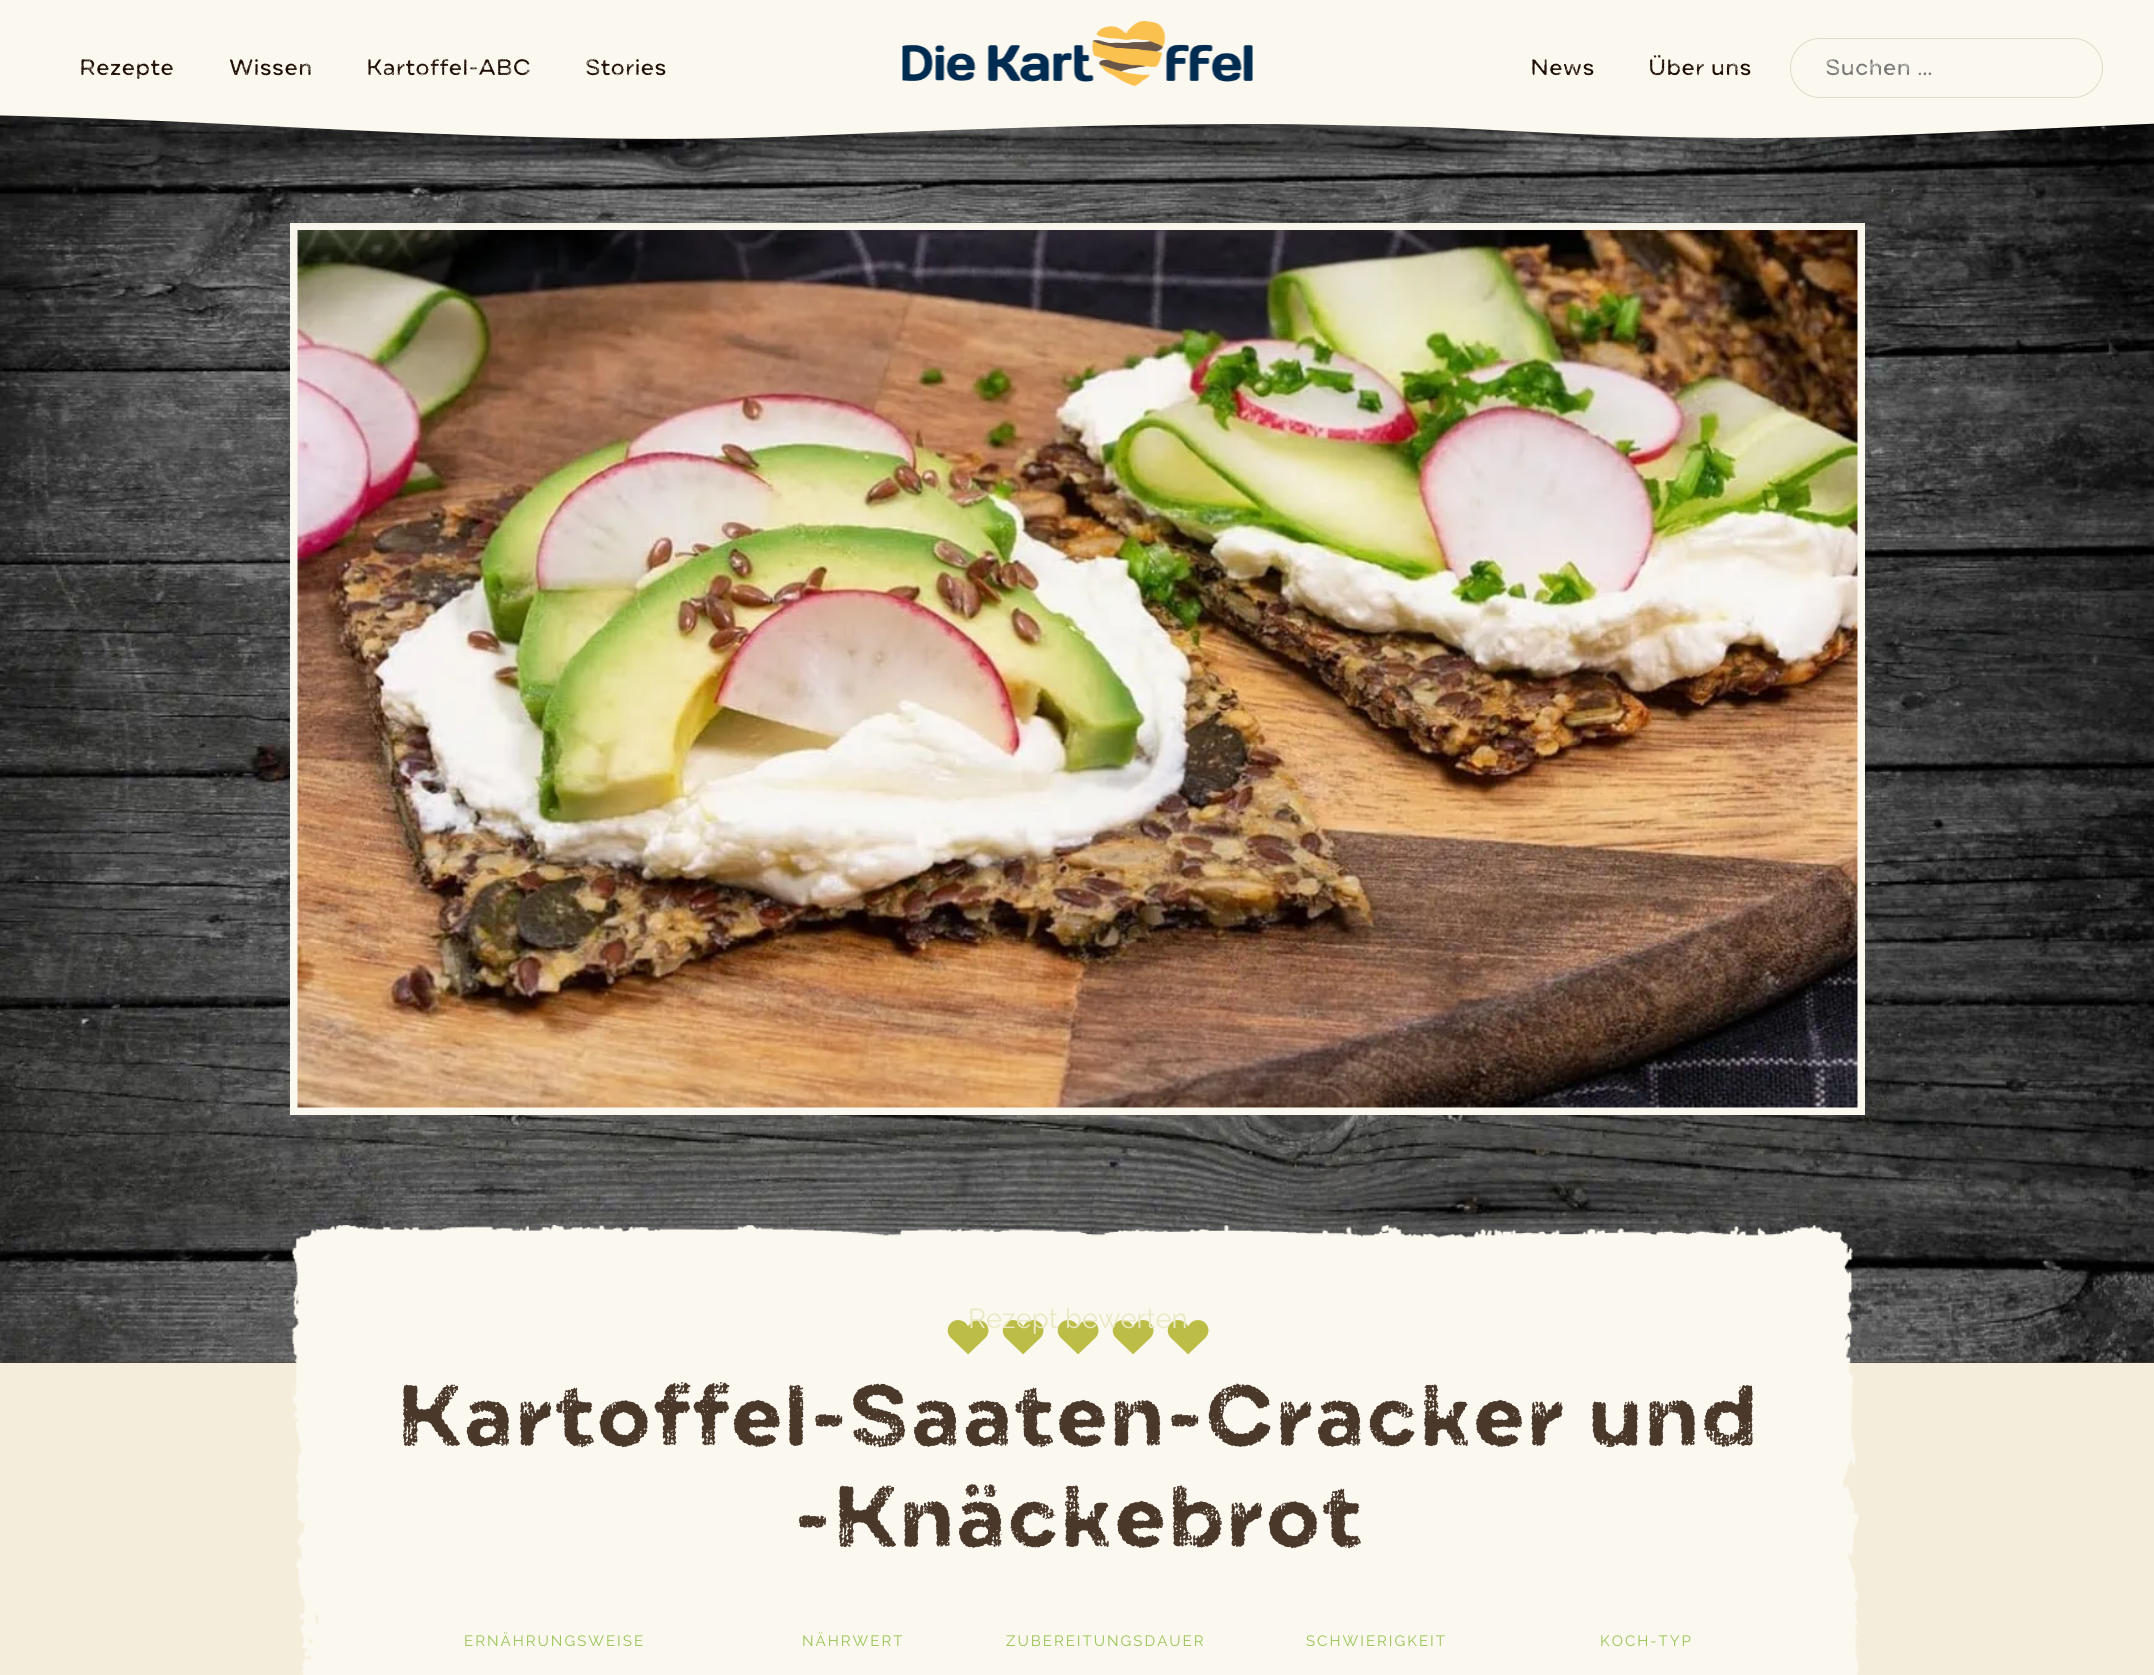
import math
import cairo

surface = cairo.ImageSurface(cairo.FORMAT_RGB24, 2154, 1675)
ctx = cairo.Context(surface)
options = cairo.FontOptions()
options.set_hint_metrics(cairo.HINT_METRICS_OFF)
options.set_hint_style(cairo.HINT_STYLE_NONE)
ctx.set_font_options(options)
ctx.set_miter_limit(4)


def set_color(code):
    ctx.set_source_rgb(*(v / 255 for v in bytes.fromhex(code[-6:])))


def draw_text(x, y, s, family, size, color, bold=False, italic=False):
    ctx.select_font_face(family, cairo.FONT_SLANT_ITALIC if italic else cairo.FONT_SLANT_NORMAL, cairo.FONT_WEIGHT_BOLD if bold else cairo.FONT_WEIGHT_NORMAL)
    ctx.set_font_size(size)
    set_color(color)
    ctx.move_to(x, y)
    ctx.show_text(s)


def draw_spaced(x, y, s, letter, word):
    ctx.move_to(x, y)
    for ch in s:
        ctx.show_text(ch)
        ctx.rel_move_to(letter + word * (ch == ' '), 0)


def fill_rect(x, y, w, h, color):
    set_color(color)
    ctx.rectangle(x, y, w, h)
    ctx.fill()


def rounded_rect(x, y, w, h, r):
    ctx.new_sub_path()
    for i, (u, v) in enumerate([(x + w - r, y + h - r), (x + r, y + h - r), (x + r, y + r), (x + w - r, y + r)]):
        ctx.arc(u, v, r, i * math.pi / 2, (i + 1) * math.pi / 2)
    ctx.close_path()


def draw_shadow(x, y, w, h, r, blur, alpha):
    ctx.push_group_with_content(cairo.CONTENT_ALPHA)
    ctx.set_operator(cairo.OPERATOR_SOURCE)
    for i in range(15, -16, -2):
        e = blur * i / 6
        if min(w, h) + 2 * e > 0:
            ctx.set_source_rgba(0, 0, 0, alpha * math.erfc((i - 1) / 8.5) / 2)
            rounded_rect(x - e, y - e, w + 2 * e, h + 2 * e, max(0, min(r + e + blur * .6, min(w, h) / 2 + e)))
            ctx.fill()
    ctx.mask(ctx.pop_group())


def draw_image(path, x, y, w, h):
    ctx.save()
    ctx.set_source_surface(cairo.ImageSurface.create_from_png(path), x, y)
    ctx.rectangle(x, y, w, h)
    ctx.fill()
    ctx.restore()


set_color("#f4eddb")
ctx.paint()
fill_rect(0, 1362, 2154, 1, "#4a382b")
draw_image("assets/img2.png", 0, 115, 2154, 1248)
set_color("#1d0d03")
draw_shadow(290, 288, 1575, 892, 0, 27.5, 0.05)
ctx.rectangle(294, 227, 1567, 884)
set_color("#fbf8f0")
ctx.set_line_width(8)
ctx.stroke()
draw_image("assets/img3.png", 297, 230, 1561, 878)
set_color("#000000")
draw_shadow(0, 0, 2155, 113, 0, 75, 0.2)
fill_rect(0, 0, 2154, 111, "#fbf8f0")
draw_image("assets/img1.png", 902, 21, 351, 65)
draw_text(79, 75, "Rezepte", "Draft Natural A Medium", 22.5, "#1d0d03")
draw_text(229, 75, "Wissen", "Draft Natural A Medium", 22.5, "#1d0d03")
draw_text(366, 75, "Kartoffel-ABC", "Draft Natural A Medium", 22.5, "#1d0d03")
draw_text(585, 75, "Stories", "Draft Natural A Medium", 22.5, "#1d0d03")
draw_text(1530, 75, "News", "Draft Natural A Medium", 22.5, "#1d0d03")
draw_text(1648, 75, "Über uns", "Draft Natural A Medium", 22.5, "#1d0d03")
rounded_rect(1790.5, 38.5, 312, 59, 29.5)
set_color("#e0dac8")
ctx.set_line_width(1)
ctx.stroke()
draw_text(1825, 75, "Suchen …", "Draft Natural A Medium", 22.5, "#757575")
ctx.save()
ctx.rectangle(0, 111, 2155, 28)
ctx.clip()
set_color("#fbf8f0")
ctx.set_fill_rule(cairo.FILL_RULE_EVEN_ODD)
ctx.new_path()
ctx.move_to(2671, 124)
ctx.curve_to(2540, 127, 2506, 119, 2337, 119)
ctx.curve_to(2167, 119, 1922, 138, 1761, 138)
ctx.curve_to(1601, 138, 1495, 129, 1426, 127)
ctx.curve_to(1370, 126, 1312, 124, 1256, 124)
ctx.curve_to(1026, 124, 832, 136, 742, 138)
ctx.curve_to(615, 141, 465, 136, 286, 127)
ctx.curve_to(114, 118, 9, 115, -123, 113)
ctx.curve_to(-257, 111, -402, 119, -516, 124)
ctx.line_to(-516, 1)
ctx.line_to(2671, 1)
ctx.close_path()
ctx.fill()
ctx.restore()
draw_image("assets/img4.png", 290, 1225, 1570, 450)
draw_image("assets/img5.png", 947, 1320, 42, 35)
draw_image("assets/img5.png", 1002, 1320, 42, 35)
draw_image("assets/img5.png", 1057, 1320, 42, 35)
draw_image("assets/img5.png", 1112, 1320, 42, 35)
draw_image("assets/img5.png", 1167, 1320, 42, 35)
draw_text(968, 1328, "Rezept bewerten", "Raleway Thin", 27.5, "#eae8c2")
draw_text(396, 1446, "Kartoffel-Saaten-Cracker und", "Draft Natural A", 87.5, "#4a382b", bold=True)
draw_text(793, 1547, "-Knäckebrot", "Draft Natural A", 87.5, "#4a382b", bold=True)
ctx.select_font_face("Raleway Thin")
ctx.set_font_size(15)
set_color("#99c455")
draw_spaced(464, 1646, "ERNÄHRUNGSWEISE", 2, 0)
draw_spaced(802, 1646, "NÄHRWERT", 2, 0)
draw_spaced(1006, 1646, "ZUBEREITUNGSDAUER", 2, 0)
draw_spaced(1306, 1646, "SCHWIERIGKEIT", 2, 0)
draw_spaced(1600, 1646, "KOCH-TYP", 2, 0)
surface.write_to_png("output.png")
